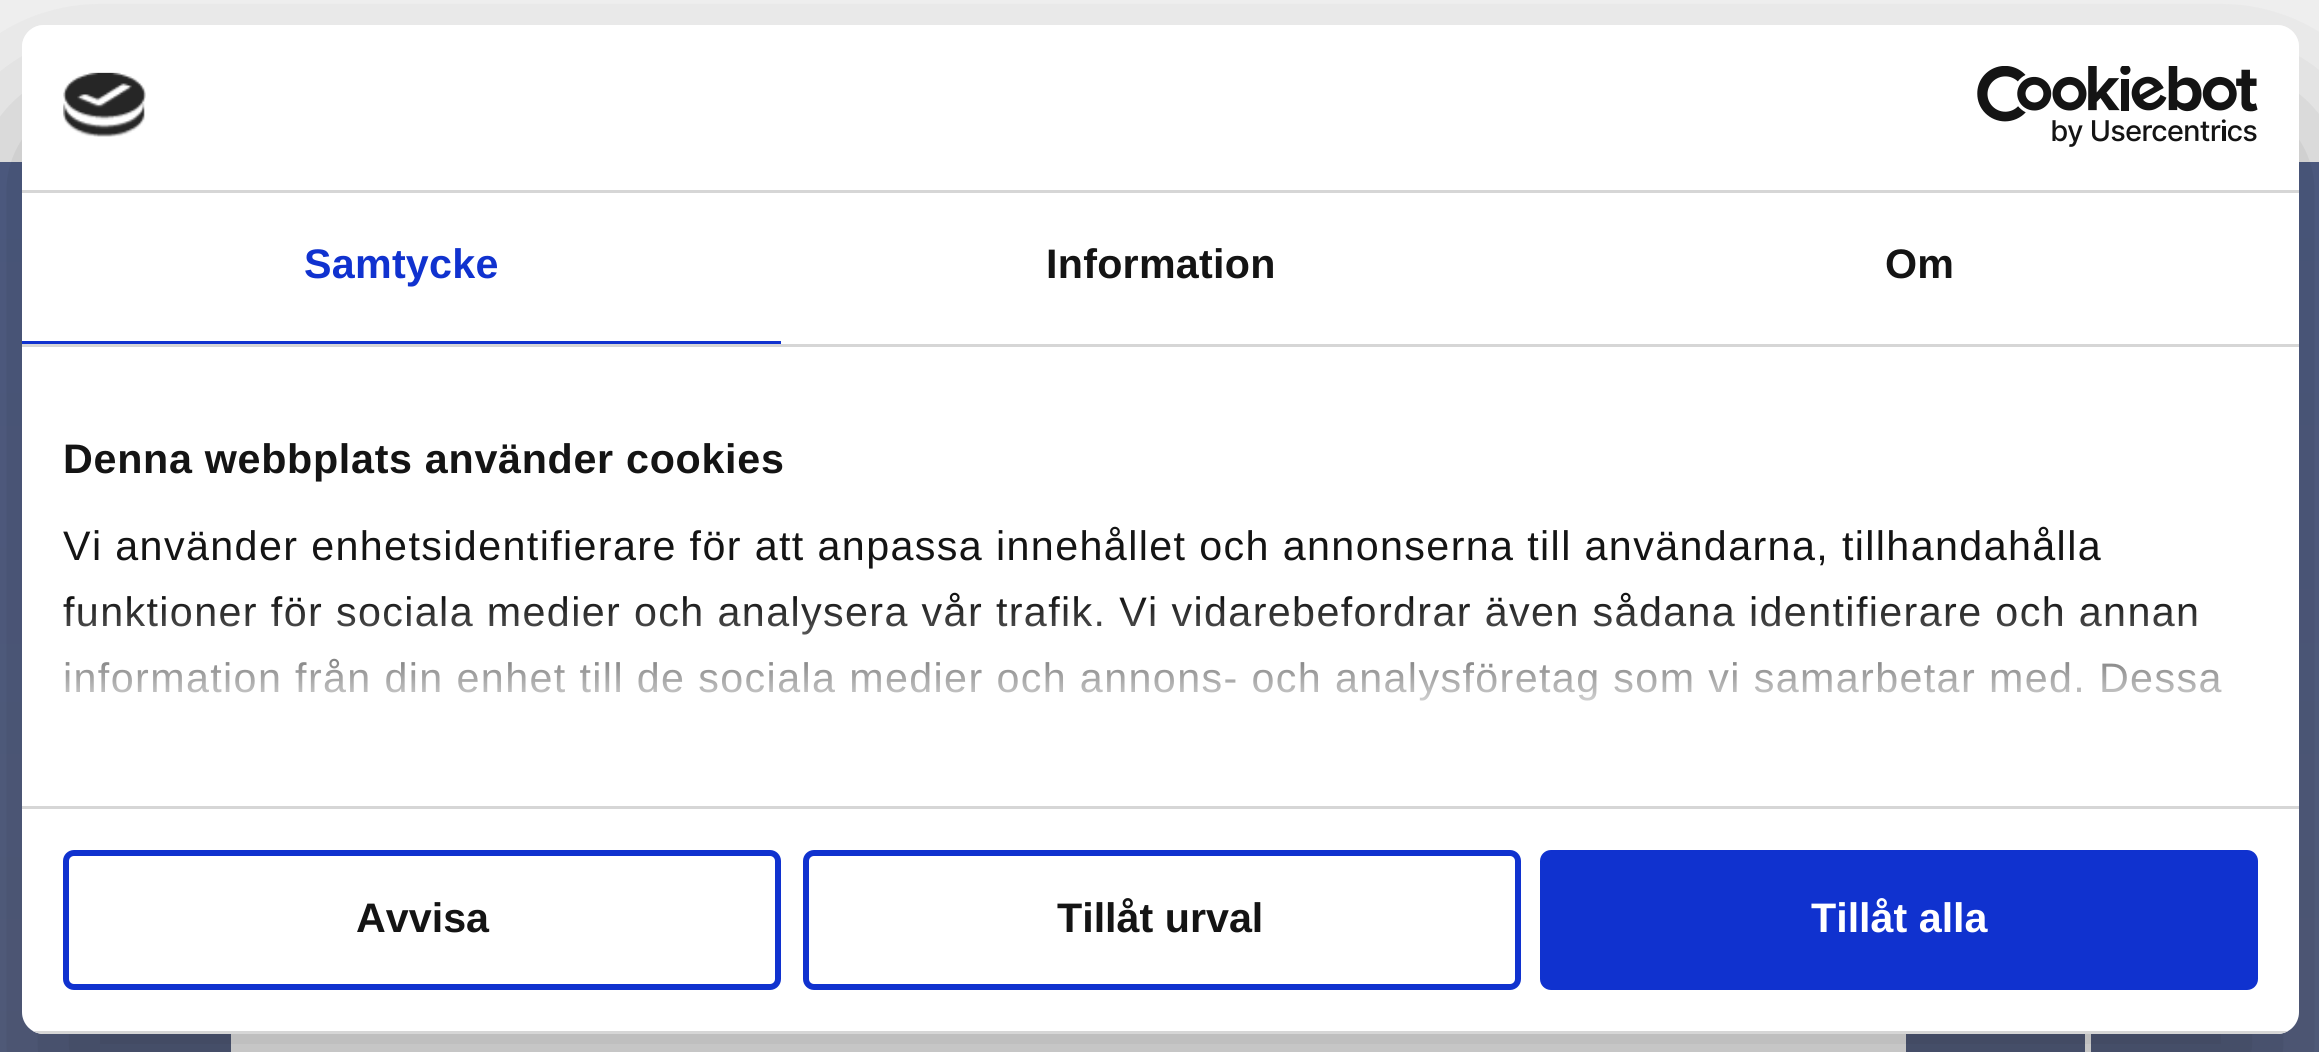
import math
import cairo

surface = cairo.ImageSurface(cairo.FORMAT_RGB24, 2319, 1052)
ctx = cairo.Context(surface)
options = cairo.FontOptions()
options.set_hint_metrics(cairo.HINT_METRICS_OFF)
options.set_hint_style(cairo.HINT_STYLE_NONE)
ctx.set_font_options(options)
ctx.set_miter_limit(4)


def set_color(code):
    ctx.set_source_rgb(*(v / 255 for v in bytes.fromhex(code[-6:])))


def draw_text(x, y, s, family, size, color, bold=False, italic=False):
    ctx.select_font_face(family, cairo.FONT_SLANT_ITALIC if italic else cairo.FONT_SLANT_NORMAL, cairo.FONT_WEIGHT_BOLD if bold else cairo.FONT_WEIGHT_NORMAL)
    ctx.set_font_size(size)
    set_color(color)
    ctx.move_to(x, y)
    ctx.show_text(s)


def draw_spaced(x, y, s, letter, word):
    ctx.move_to(x, y)
    for ch in s:
        ctx.show_text(ch)
        ctx.rel_move_to(letter + word * (ch == ' '), 0)


def fill_rect(x, y, w, h, color):
    set_color(color)
    ctx.rectangle(x, y, w, h)
    ctx.fill()


def rounded_rect(x, y, w, h, r):
    ctx.new_sub_path()
    for i, (u, v) in enumerate([(x + w - r, y + h - r), (x + r, y + h - r), (x + r, y + r), (x + w - r, y + r)]):
        ctx.arc(u, v, r, i * math.pi / 2, (i + 1) * math.pi / 2)
    ctx.close_path()


def draw_shadow(x, y, w, h, r, blur, alpha):
    ctx.push_group_with_content(cairo.CONTENT_ALPHA)
    ctx.set_operator(cairo.OPERATOR_SOURCE)
    for i in range(15, -16, -2):
        e = blur * i / 6
        if min(w, h) + 2 * e > 0:
            ctx.set_source_rgba(0, 0, 0, alpha * math.erfc((i - 1) / 8.5) / 2)
            rounded_rect(x - e, y - e, w + 2 * e, h + 2 * e, max(0, min(r + e + blur * .6, min(w, h) / 2 + e)))
            ctx.fill()
    ctx.mask(ctx.pop_group())


def draw_image(path, x, y, w, h):
    ctx.save()
    ctx.set_source_surface(cairo.ImageSurface.create_from_png(path), x, y)
    ctx.rectangle(x, y, w, h)
    ctx.fill()
    ctx.restore()


set_color("#f5f5f5")
ctx.paint()
gradient = cairo.LinearGradient(1160, 162, 1161, 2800)
gradient.add_color_stop_rgba(0, 0.329, 0.388, 0.549, 1)
gradient.add_color_stop_rgba(1, 0.392, 0.4, 0.482, 1)
ctx.set_source(gradient)
ctx.rectangle(0, 162, 2319, 890)
ctx.fill()
fill_rect(2085, 1034, 6, 18, "#ffffff")
fill_rect(231, 1034, 1675, 18, "#ffffff")
ctx.save()
ctx.set_fill_rule(cairo.FILL_RULE_EVEN_ODD)
ctx.new_path()
ctx.move_to(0, 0)
ctx.line_to(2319, 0)
ctx.line_to(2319, 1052)
ctx.line_to(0, 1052)
ctx.close_path()
ctx.move_to(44, 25)
ctx.line_to(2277, 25)
ctx.curve_to(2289, 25, 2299, 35, 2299, 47)
ctx.line_to(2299, 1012)
ctx.curve_to(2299, 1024, 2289, 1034, 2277, 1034)
ctx.line_to(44, 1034)
ctx.curve_to(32, 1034, 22, 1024, 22, 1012)
ctx.line_to(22, 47)
ctx.curve_to(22, 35, 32, 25, 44, 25)
ctx.close_path()
ctx.clip()
set_color("#000000")
draw_shadow(22, 113, 2277, 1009, 22, 93.5, 0.3)
ctx.restore()
rounded_rect(22, 25, 2277, 1009, 22)
ctx.fill()
fill_rect(22, 190, 2277, 3, "#d6d6d6")
draw_image("assets/img1.png", 63, 72, 83, 65)
draw_image("assets/img2.png", 1977, 66, 281, 81)
fill_rect(22, 344, 2277, 3, "#d6d6d6")
fill_rect(22, 341, 759, 3, "#1032cf")
ctx.select_font_face("Liberation Sans", cairo.FONT_SLANT_NORMAL, cairo.FONT_WEIGHT_BOLD)
ctx.set_font_size(41.25)
draw_spaced(304, 278, "Samtycke", 0.25, 0)
set_color("#141414")
draw_spaced(1046, 278, "Information", 0.25, 0)
draw_spaced(1885, 278, "Om", 0.25, 0)
fill_rect(22, 806, 2277, 3, "#d6d6d6")
set_color("#141414")
draw_spaced(63, 473, "Denna webbplats använder cookies", 0.7, 0)
ctx.select_font_face("Liberation Sans")
draw_spaced(63, 560, "Vi använder enhetsidentifierare för att anpassa innehållet och annonserna till användarna, tillhandahålla", 1.38, 0)
draw_spaced(63, 626, "funktioner för sociala medier och analysera vår trafik. Vi vidarebefordrar även sådana identifierare och annan", 1.38, 0)
draw_spaced(63, 692, "information från din enhet till de sociala medier och annons- och analysföretag som vi samarbetar med. Dessa", 1.38, 0)
gradient = cairo.LinearGradient(1143, 804, 1143, 598)
gradient.add_color_stop_rgba(0, 1, 1, 1, 1)
gradient.add_color_stop_rgba(0.5, 1, 1, 1, 0.8)
gradient.add_color_stop_rgba(1, 1, 1, 1, 0)
ctx.set_source(gradient)
ctx.rectangle(64, 601, 2158, 100)
ctx.fill()
ctx.save()
rounded_rect(22, 25, 2277, 1009, 22)
ctx.clip()
fill_rect(33, 1031, 2255, 3, "#d6d6d6")
ctx.restore()
rounded_rect(66, 853, 712, 134, 8)
set_color("#1032cf")
ctx.set_line_width(6)
ctx.stroke()
draw_text(356, 932, "Avvisa", "Liberation Sans", 41.25, "#141414", bold=True)
rounded_rect(806, 853, 712, 134, 8)
set_color("#1032cf")
ctx.stroke()
draw_text(1057, 932, "Tillåt urval", "Liberation Sans", 41.25, "#141414", bold=True)
set_color("#1032cf")
rounded_rect(1543, 853, 712, 134, 8)
ctx.fill_preserve()
ctx.stroke()
draw_text(1811, 932, "Tillåt alla", "Liberation Sans", 41.25, "#ffffff", bold=True)
surface.write_to_png("output.png")
